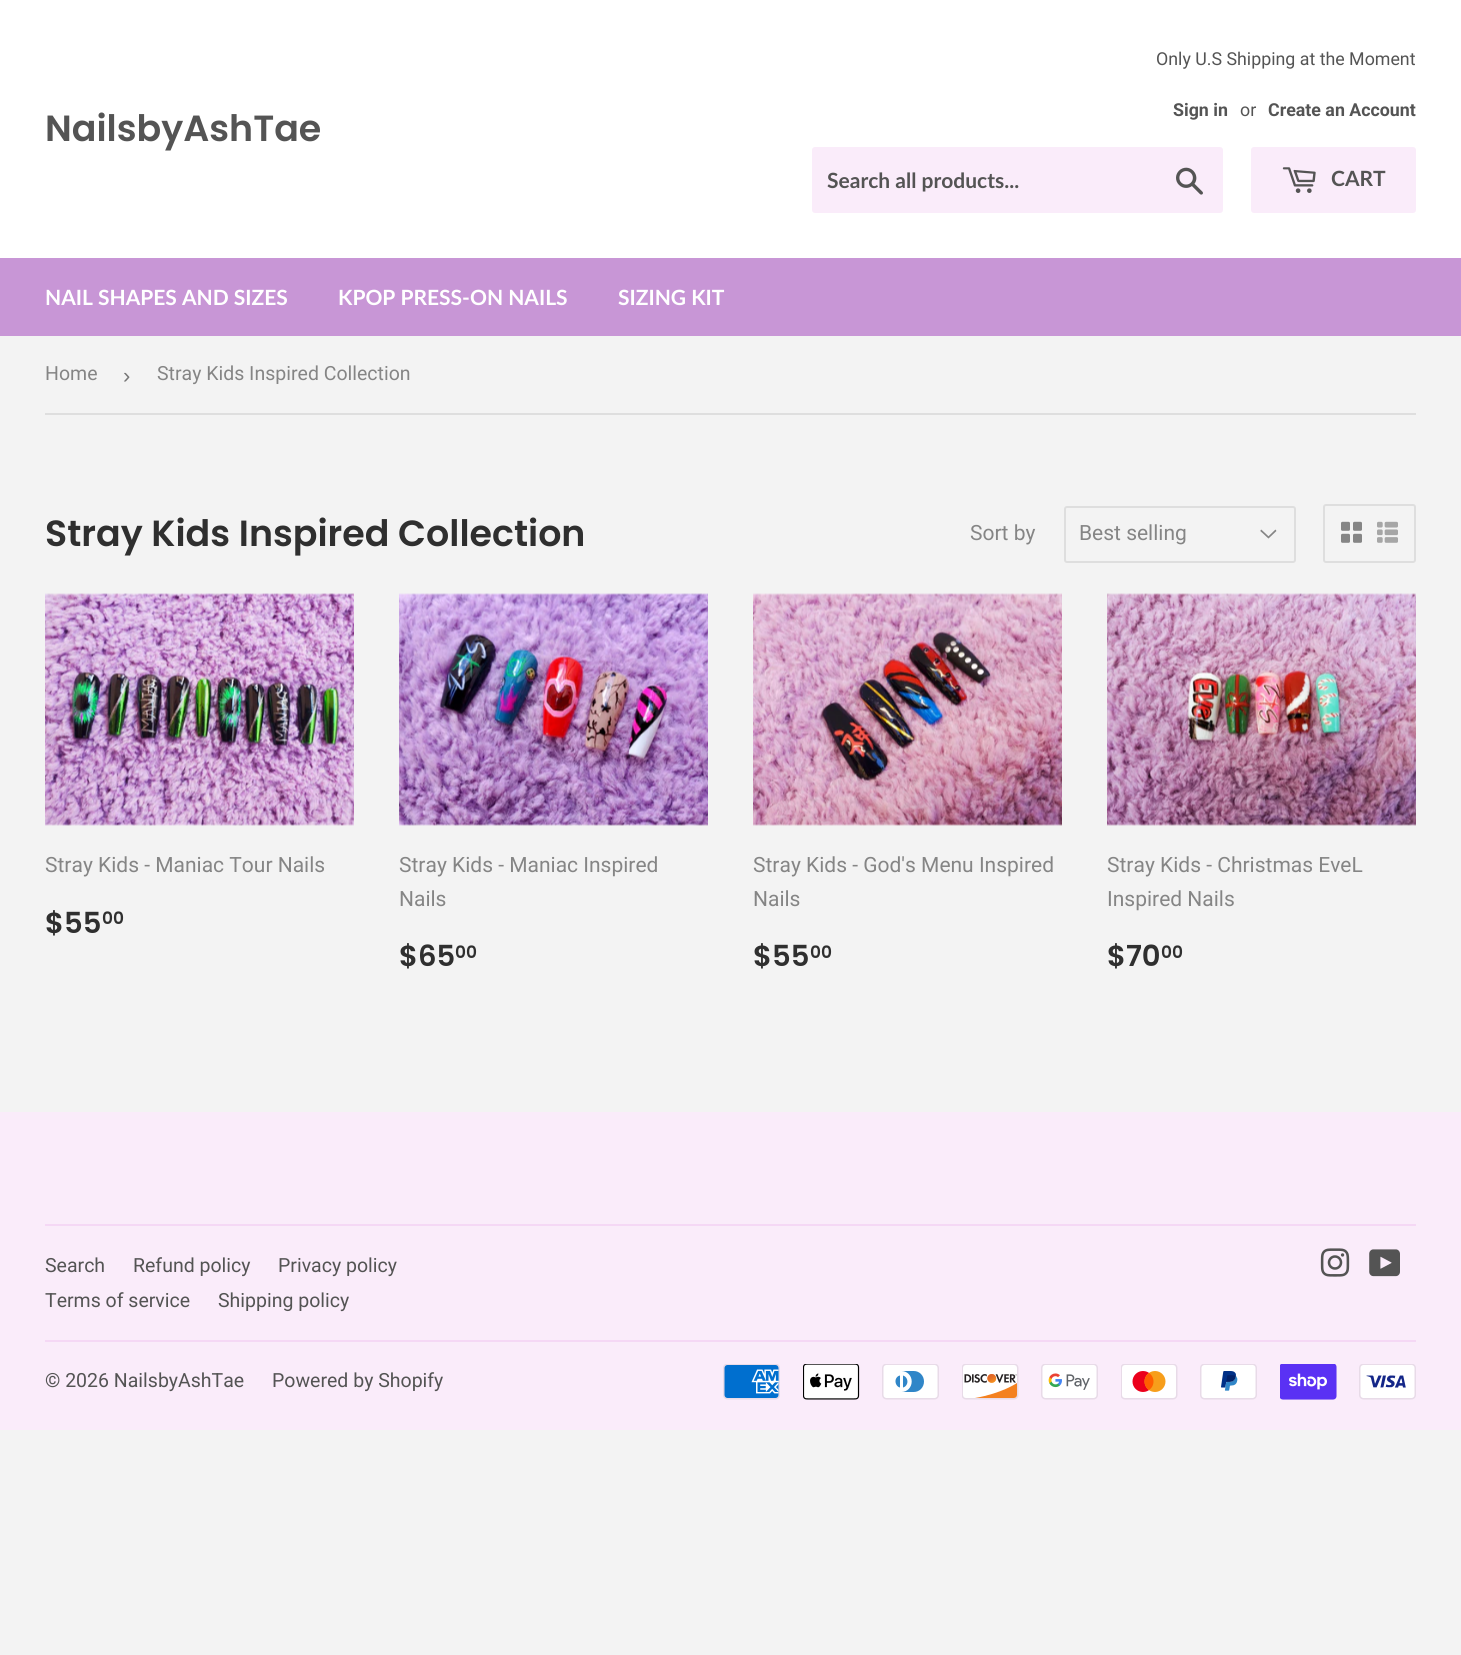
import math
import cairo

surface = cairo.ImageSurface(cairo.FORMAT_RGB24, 1461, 1655)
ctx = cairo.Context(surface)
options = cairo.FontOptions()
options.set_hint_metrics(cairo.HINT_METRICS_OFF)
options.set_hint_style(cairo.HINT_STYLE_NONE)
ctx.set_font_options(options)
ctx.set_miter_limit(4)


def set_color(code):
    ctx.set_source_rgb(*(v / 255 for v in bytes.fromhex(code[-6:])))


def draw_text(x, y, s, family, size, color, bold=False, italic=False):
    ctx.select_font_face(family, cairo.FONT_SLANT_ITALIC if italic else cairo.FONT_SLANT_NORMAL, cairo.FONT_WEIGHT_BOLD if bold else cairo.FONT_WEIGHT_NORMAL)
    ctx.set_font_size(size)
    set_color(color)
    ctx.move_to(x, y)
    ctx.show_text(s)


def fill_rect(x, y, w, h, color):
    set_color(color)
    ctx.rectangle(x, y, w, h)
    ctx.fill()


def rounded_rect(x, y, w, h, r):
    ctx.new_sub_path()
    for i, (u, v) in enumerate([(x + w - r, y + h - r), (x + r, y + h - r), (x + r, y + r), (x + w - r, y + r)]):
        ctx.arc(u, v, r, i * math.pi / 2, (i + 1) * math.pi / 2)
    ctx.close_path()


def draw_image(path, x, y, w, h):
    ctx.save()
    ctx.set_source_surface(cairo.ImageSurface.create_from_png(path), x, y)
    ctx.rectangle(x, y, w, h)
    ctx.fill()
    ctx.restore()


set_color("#f3f3f3")
ctx.paint()
fill_rect(0, 0, 1461, 258, "#ffffff")
draw_text(45, 141, "NailsbyAshTae", "Poppins SemiBold", 36.4, "#545454")
draw_text(1156, 65, "Only U.S Shipping at the Moment", "Roboto", 17.8, "#545454")
draw_text(1173, 116, "Sign in", "Roboto", 17.8, "#545454", bold=True)
draw_text(1240, 116, "or", "Roboto", 17.8, "#545454")
draw_text(1268, 116, "Create an Account", "Roboto", 17.8, "#545454", bold=True)
set_color("#faecfa")
rounded_rect(812, 147, 411, 66, 3)
ctx.fill()
draw_text(827, 188, "Search all products...", "Lato", 21, "#545454", bold=True)
draw_image("assets/img1.png", 1176, 167, 27, 28)
set_color("#faecfa")
rounded_rect(1251, 147, 165, 66, 3)
ctx.fill()
draw_image("assets/img2.png", 1282, 167, 34, 26)
draw_text(1331, 186, "CART", "Lato", 21, "#545454", bold=True)
fill_rect(0, 258, 1461, 78, "#c896d6")
draw_text(45, 305, "NAIL SHAPES AND SIZES", "Lato", 21, "#ffffff", bold=True)
draw_text(338, 305, "KPOP PRESS-ON NAILS", "Lato", 21, "#ffffff", bold=True)
draw_text(618, 305, "SIZING KIT", "Lato", 21, "#ffffff", bold=True)
fill_rect(45, 413, 1371, 2, "#dedede")
draw_text(45, 380, "Home", "Roboto", 19.5, "#858585")
draw_text(123, 383, "›", "Liberation Sans", 22, "#767676")
draw_text(157, 380, "Stray Kids Inspired Collection", "Roboto", 19.5, "#858585")
draw_text(45, 546, "Stray Kids Inspired Collection", "Poppins SemiBold", 36.4, "#2f2f2f")
draw_text(970, 540, "Sort by", "Roboto", 21, "#858585")
draw_image("assets/img3.png", 1260, 529, 17, 10)
rounded_rect(1065, 507, 230, 55, 2)
set_color("#dedede")
ctx.stroke()
draw_text(1079, 540, "Best selling", "Roboto", 21, "#858585")
rounded_rect(1324, 505, 91, 57, 2)
set_color("#dedede")
ctx.stroke()
draw_image("assets/img4.png", 1341, 521, 21, 22)
draw_image("assets/img5.png", 1377, 521, 21, 22)
draw_image("assets/img6.png", 45, 593, 309, 233)
draw_text(45, 872, "Stray Kids - Maniac Tour Nails", "Roboto", 21, "#858585")
draw_text(45, 933, "$55", "Poppins SemiBold", 29, "#2f2f2f")
draw_text(102, 924, "00", "Poppins SemiBold", 17, "#2f2f2f")
draw_image("assets/img7.png", 399, 593, 309, 233)
draw_text(399, 872, "Stray Kids - Maniac Inspired", "Roboto", 21, "#858585")
draw_text(399, 906, "Nails", "Roboto", 21, "#858585")
draw_text(399, 966, "$65", "Poppins SemiBold", 29, "#2f2f2f")
draw_text(455, 958, "00", "Poppins SemiBold", 17, "#2f2f2f")
draw_image("assets/img8.png", 753, 593, 309, 233)
draw_text(753, 872, "Stray Kids - God's Menu Inspired", "Roboto", 21, "#858585")
draw_text(753, 906, "Nails", "Roboto", 21, "#858585")
draw_text(753, 966, "$55", "Poppins SemiBold", 29, "#2f2f2f")
draw_text(810, 958, "00", "Poppins SemiBold", 17, "#2f2f2f")
draw_image("assets/img9.png", 1107, 593, 309, 233)
draw_text(1107, 872, "Stray Kids - Christmas EveL", "Roboto", 21, "#858585")
draw_text(1107, 906, "Inspired Nails", "Roboto", 21, "#858585")
draw_text(1107, 966, "$70", "Poppins SemiBold", 29, "#2f2f2f")
draw_text(1161, 958, "00", "Poppins SemiBold", 17, "#2f2f2f")
fill_rect(0, 1112, 1461, 318, "#faecfa")
fill_rect(45, 1224, 1371, 2, "#f5d8f5")
draw_text(45, 1272, "Search", "Roboto", 19.5, "#545454")
draw_text(133, 1272, "Refund policy", "Roboto", 19.5, "#545454")
draw_text(278, 1272, "Privacy policy", "Roboto", 19.5, "#545454")
draw_text(45, 1307, "Terms of service", "Roboto", 19.5, "#545454")
draw_text(218, 1307, "Shipping policy", "Roboto", 19.5, "#545454")
draw_image("assets/img10.png", 1320, 1248, 30, 29)
draw_image("assets/img11.png", 1369, 1249, 31, 28)
fill_rect(45, 1340, 1371, 2, "#f5d8f5")
draw_text(45, 1387, "© 2026 NailsbyAshTae", "Roboto", 19.5, "#545454")
draw_text(272, 1387, "Powered by Shopify", "Roboto", 19.5, "#545454")
draw_image("assets/img12.png", 723, 1364, 57, 36)
draw_image("assets/img13.png", 803, 1364, 57, 36)
draw_image("assets/img14.png", 882, 1364, 57, 36)
draw_image("assets/img15.png", 962, 1364, 57, 36)
draw_image("assets/img16.png", 1041, 1364, 57, 36)
draw_image("assets/img17.png", 1121, 1364, 57, 36)
draw_image("assets/img18.png", 1200, 1364, 57, 36)
draw_image("assets/img19.png", 1280, 1364, 57, 36)
draw_image("assets/img20.png", 1359, 1364, 57, 36)
surface.write_to_png("output.png")
